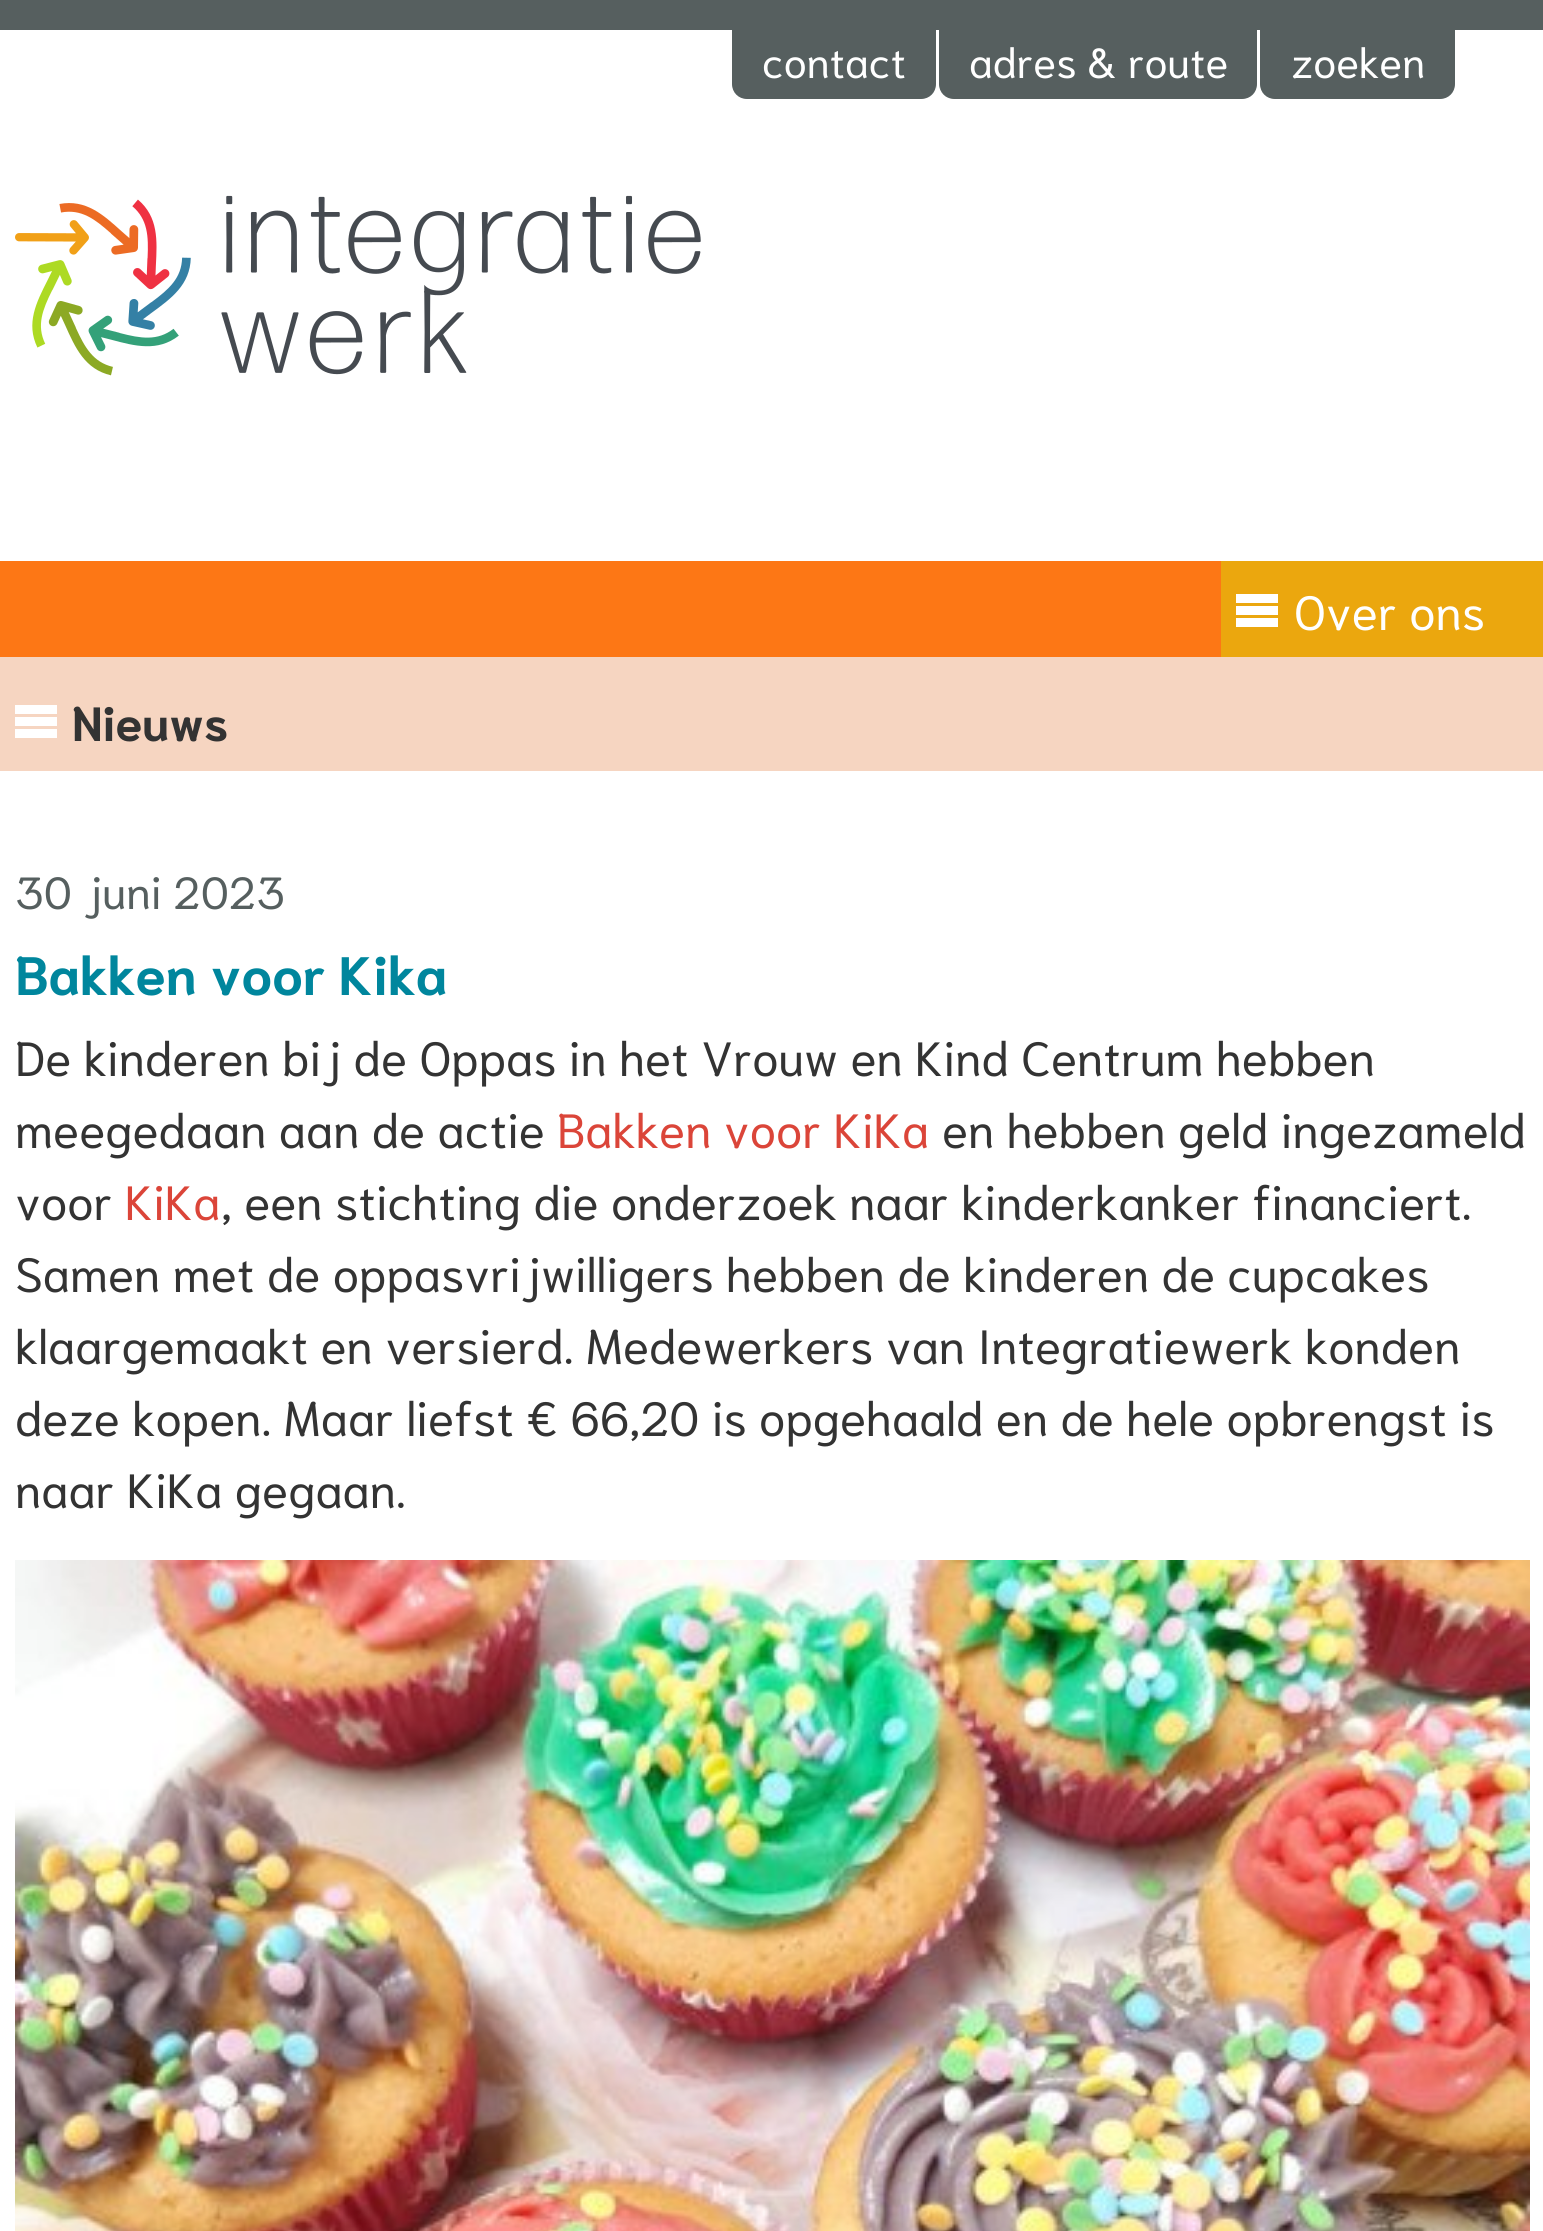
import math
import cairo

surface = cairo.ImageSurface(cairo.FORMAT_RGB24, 1543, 2231)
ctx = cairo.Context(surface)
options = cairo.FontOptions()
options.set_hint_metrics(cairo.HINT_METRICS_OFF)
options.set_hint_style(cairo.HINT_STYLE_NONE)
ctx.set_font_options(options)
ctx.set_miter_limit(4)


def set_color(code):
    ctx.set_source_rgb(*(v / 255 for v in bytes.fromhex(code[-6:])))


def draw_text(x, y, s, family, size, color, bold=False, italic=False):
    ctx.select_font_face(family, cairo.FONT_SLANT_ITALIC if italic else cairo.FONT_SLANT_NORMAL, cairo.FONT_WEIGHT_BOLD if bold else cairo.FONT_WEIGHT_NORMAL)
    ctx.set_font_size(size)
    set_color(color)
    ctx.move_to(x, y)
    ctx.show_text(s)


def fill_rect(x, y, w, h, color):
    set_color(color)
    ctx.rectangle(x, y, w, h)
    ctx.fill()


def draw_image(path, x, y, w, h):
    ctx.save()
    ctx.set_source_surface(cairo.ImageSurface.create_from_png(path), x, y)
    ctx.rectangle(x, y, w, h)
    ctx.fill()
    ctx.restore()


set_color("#ffffff")
ctx.paint()
fill_rect(0, 561, 1221, 96, "#fd7715")
fill_rect(0, 0, 1543, 30, "#565f5f")
ctx.new_path()
ctx.move_to(732, 30)
ctx.line_to(936, 30)
ctx.line_to(936, 84)
ctx.curve_to(936, 92.5, 929.5, 99, 921, 99)
ctx.line_to(747, 99)
ctx.curve_to(738.5, 99, 732, 92.5, 732, 84)
ctx.close_path()
ctx.fill()
draw_text(762, 78, "contact", "Niramit", 42, "#ffffff")
set_color("#565f5f")
ctx.new_path()
ctx.move_to(939, 30)
ctx.line_to(1257, 30)
ctx.line_to(1257, 84)
ctx.curve_to(1257, 92.5, 1250.5, 99, 1242, 99)
ctx.line_to(954, 99)
ctx.curve_to(945.5, 99, 939, 92.5, 939, 84)
ctx.close_path()
ctx.fill()
draw_text(969, 78, "adres & route", "Niramit", 42, "#ffffff")
set_color("#565f5f")
ctx.new_path()
ctx.move_to(1260, 30)
ctx.line_to(1455, 30)
ctx.line_to(1455, 84)
ctx.curve_to(1455, 92.5, 1448.5, 99, 1440, 99)
ctx.line_to(1275, 99)
ctx.curve_to(1266.5, 99, 1260, 92.5, 1260, 84)
ctx.close_path()
ctx.fill()
draw_text(1291, 78, "zoeken", "Niramit", 42, "#ffffff")
draw_image("assets/img1.png", 15, 195, 686, 181)
fill_rect(1221, 561, 322, 96, "#eba70e")
fill_rect(1236, 594, 42, 9, "#ffffff")
fill_rect(1236, 606, 42, 9, "#ffffff")
fill_rect(1236, 618, 42, 9, "#ffffff")
draw_text(1294, 630, "Over ons", "Niramit", 48, "#ffffff")
fill_rect(0, 657, 1543, 114, "#f6d5c1")
fill_rect(15, 705, 42, 9, "#ffffff")
fill_rect(15, 717, 42, 9, "#ffffff")
fill_rect(15, 729, 42, 9, "#ffffff")
draw_text(72, 741, "Nieuws", "Niramit", 48, "#333333", bold=True)
draw_text(15, 909, "30 juni 2023", "Niramit", 45, "#565f5f")
draw_text(15, 995, "Bakken voor Kika", "Niramit", 54, "#00869d", bold=True)
draw_text(15, 1076, "De kinderen bij de Oppas in het Vrouw en Kind Centrum hebben", "Niramit", 48, "#333333")
draw_text(15, 1148, "meegedaan aan de actie", "Niramit", 48, "#333333")
draw_text(557, 1148, "Bakken voor KiKa", "Niramit", 48, "#db4539")
draw_text(942, 1148, "en hebben geld ingezameld", "Niramit", 48, "#333333")
draw_text(15, 1220, "voor", "Niramit", 48, "#333333")
draw_text(125, 1220, "KiKa", "Niramit", 48, "#db4539")
draw_text(221, 1220, ", een stichting die onderzoek naar kinderkanker financiert.", "Niramit", 48, "#333333")
draw_text(15, 1292, "Samen met de oppasvrijwilligers hebben de kinderen de cupcakes", "Niramit", 48, "#333333")
draw_text(15, 1364, "klaargemaakt en versierd. Medewerkers van Integratiewerk konden", "Niramit", 48, "#333333")
draw_text(15, 1436, "deze kopen. Maar liefst € 66,20 is opgehaald en de hele opbrengst is", "Niramit", 48, "#333333")
draw_text(15, 1508, "naar KiKa gegaan.", "Niramit", 48, "#333333")
draw_image("assets/img2.png", 15, 1560, 1515, 671)
surface.write_to_png("output.png")
